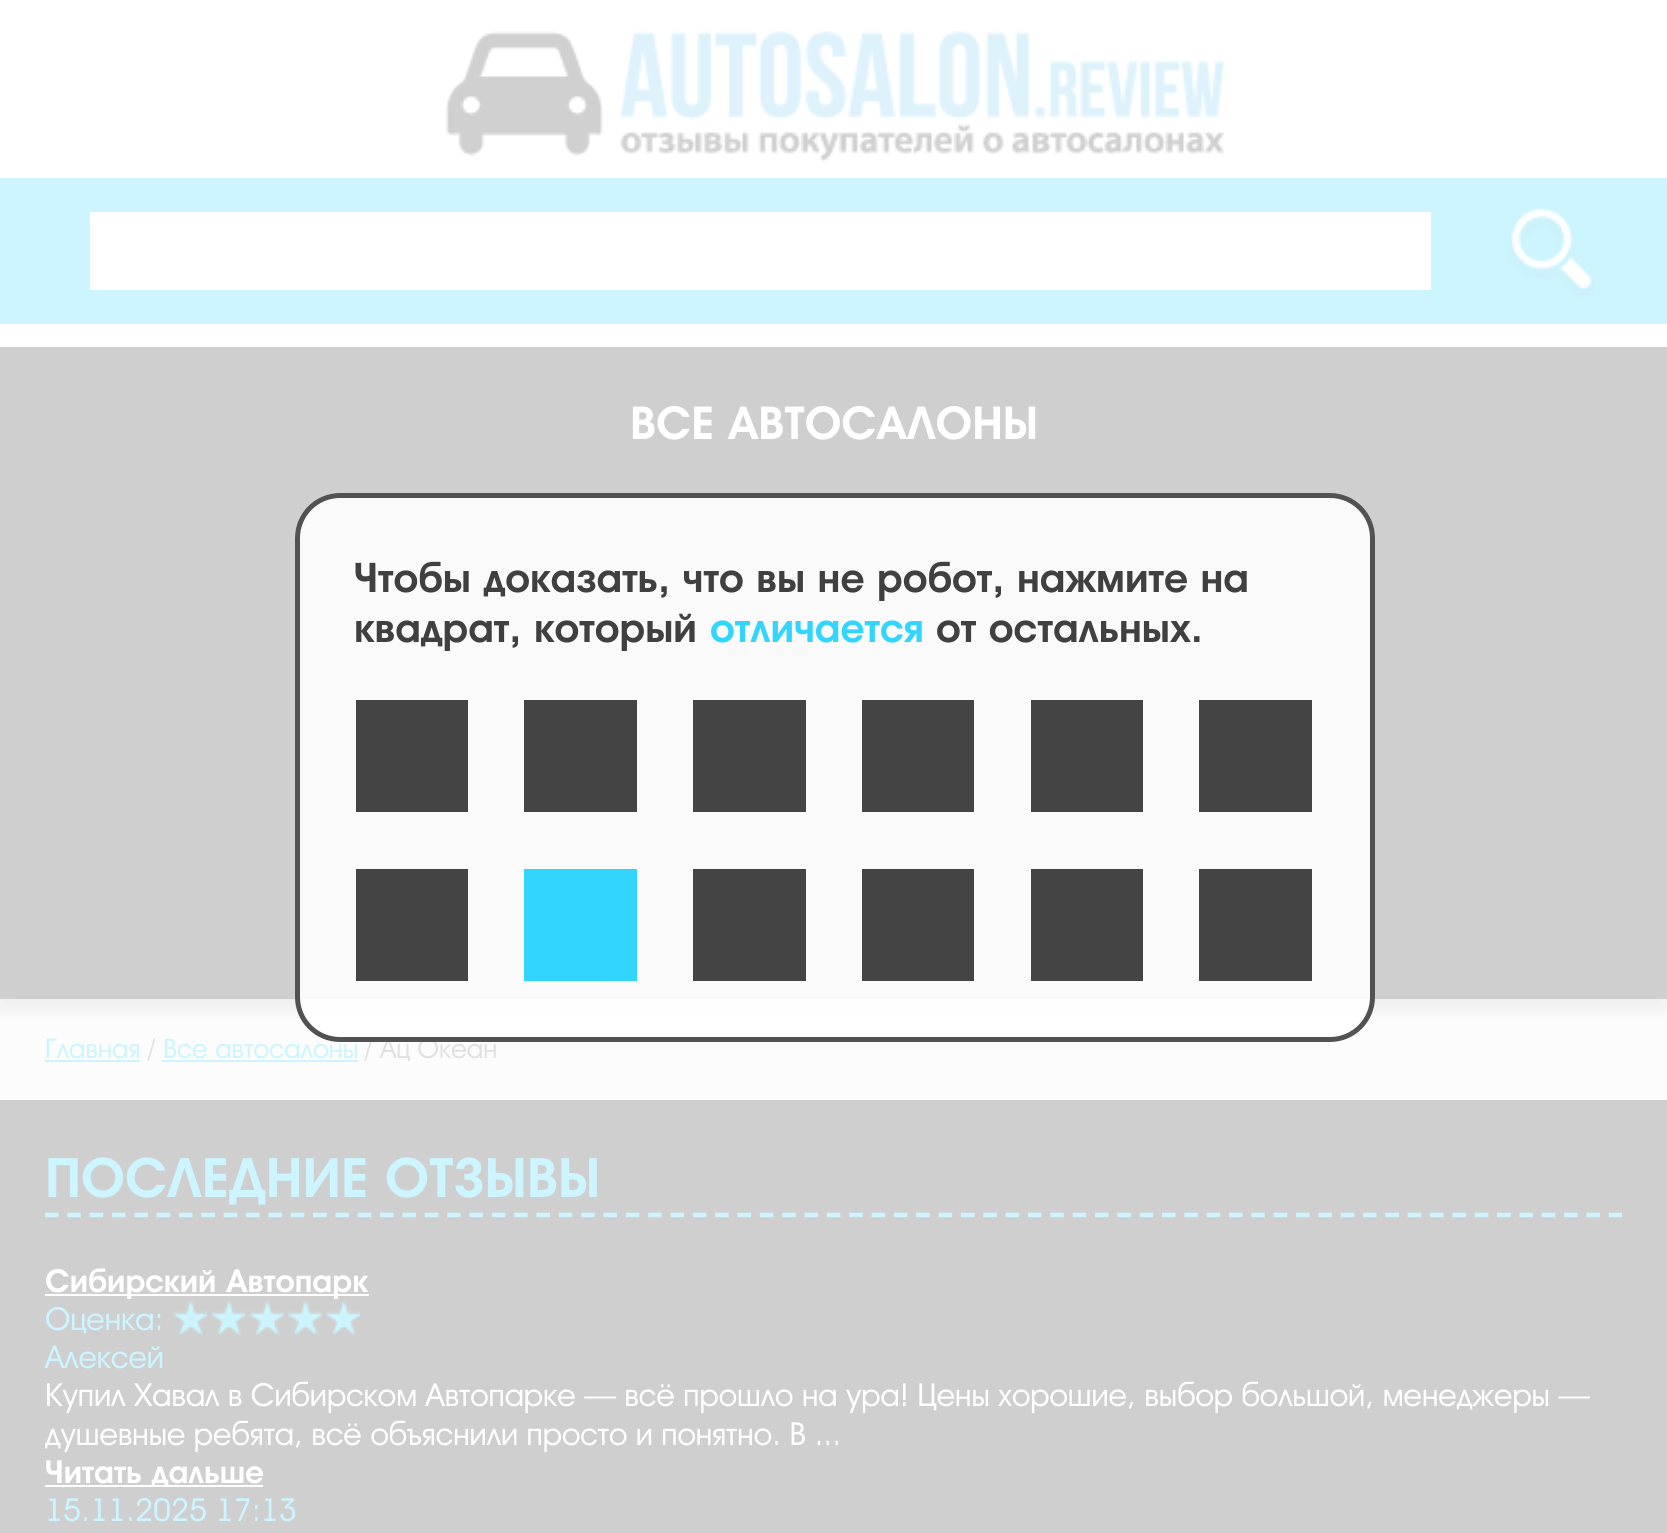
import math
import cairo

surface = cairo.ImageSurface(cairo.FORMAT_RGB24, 1667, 1533)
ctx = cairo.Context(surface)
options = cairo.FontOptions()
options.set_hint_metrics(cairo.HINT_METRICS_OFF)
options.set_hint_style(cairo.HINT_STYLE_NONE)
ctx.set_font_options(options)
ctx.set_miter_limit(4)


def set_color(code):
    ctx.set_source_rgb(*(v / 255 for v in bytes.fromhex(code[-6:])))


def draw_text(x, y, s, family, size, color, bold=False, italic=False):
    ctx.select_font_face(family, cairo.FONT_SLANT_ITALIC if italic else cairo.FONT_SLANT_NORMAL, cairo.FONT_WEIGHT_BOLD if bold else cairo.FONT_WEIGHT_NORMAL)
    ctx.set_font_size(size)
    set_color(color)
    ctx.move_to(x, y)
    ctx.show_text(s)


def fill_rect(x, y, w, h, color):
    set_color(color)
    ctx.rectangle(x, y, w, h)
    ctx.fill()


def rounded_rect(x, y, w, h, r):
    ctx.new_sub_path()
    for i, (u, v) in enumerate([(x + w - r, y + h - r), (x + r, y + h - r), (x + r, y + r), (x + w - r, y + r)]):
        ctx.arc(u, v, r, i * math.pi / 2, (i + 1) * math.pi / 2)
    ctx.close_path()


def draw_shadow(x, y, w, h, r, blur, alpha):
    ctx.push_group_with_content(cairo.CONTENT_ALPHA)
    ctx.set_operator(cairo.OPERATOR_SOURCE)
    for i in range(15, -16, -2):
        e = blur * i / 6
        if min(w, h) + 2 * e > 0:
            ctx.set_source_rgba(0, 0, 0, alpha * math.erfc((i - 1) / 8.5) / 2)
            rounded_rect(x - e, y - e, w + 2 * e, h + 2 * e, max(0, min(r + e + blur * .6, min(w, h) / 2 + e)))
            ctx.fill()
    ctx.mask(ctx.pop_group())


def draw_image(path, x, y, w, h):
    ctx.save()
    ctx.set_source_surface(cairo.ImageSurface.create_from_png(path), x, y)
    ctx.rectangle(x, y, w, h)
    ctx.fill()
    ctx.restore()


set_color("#fcfcfc")
ctx.paint()
fill_rect(0, 0, 1667, 347, "#ffffff")
draw_image("assets/img1.png", 445, 31, 779, 132)
fill_rect(0, 178, 1667, 146, "#ccf5ff")
fill_rect(90, 212, 1341, 78, "#ffffff")
draw_image("assets/img2.png", 1509, 208, 84, 89)
set_color("#cac7ce")
draw_shadow(0, 358, 1667, 652, 0, 5.5, 0.25)
fill_rect(0, 347, 1667, 652, "#cfcfcf")
draw_text(630, 439, "ВСЕ АВТОСАЛОНЫ", "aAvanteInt", 45, "#ffffff", bold=True)
draw_text(45, 1058, "Главная", "aAvanteInt", 27, "#ccf5ff")
fill_rect(45, 1060, 95, 2, "#ccf5ff")
draw_text(148, 1058, "/", "aAvanteInt", 27, "#e1e1e1")
draw_text(163, 1058, "Все автосалоны", "aAvanteInt", 27, "#ccf5ff")
fill_rect(162, 1060, 196, 2, "#ccf5ff")
draw_text(365, 1058, "/ Ац Океан", "aAvanteInt", 27, "#e1e1e1")
fill_rect(0, 1100, 1667, 433, "#cfcfcf")
ctx.new_path()
ctx.move_to(45, 1215)
ctx.line_to(1622, 1215)
set_color("#ccf5ff")
ctx.set_line_width(4.5)
ctx.set_dash([13.5, 8.84])
ctx.stroke()
draw_text(45, 1197, "ПОСЛЕДНИЕ ОТЗЫВЫ", "aAvanteInt", 54, "#ccf5ff", bold=True)
fill_rect(45, 1294, 324, 2, "#ffffff")
draw_text(45, 1292, "Сибирский Автопарк", "aAvanteInt", 31.5, "#ffffff", bold=True)
draw_text(45, 1330, "Оценка:", "aAvanteInt", 31.5, "#ccf5ff")
draw_image("assets/img3.png", 173, 1300, 34, 35)
draw_image("assets/img4.png", 211, 1300, 35, 35)
draw_image("assets/img5.png", 249, 1300, 35, 35)
draw_image("assets/img6.png", 288, 1300, 34, 35)
draw_image("assets/img3.png", 326, 1300, 34, 35)
draw_text(45, 1368, "Алексей", "aAvanteInt", 31.5, "#ccf5ff")
draw_text(45, 1406, "Купил Хавал в Сибирском Автопарке — всё прошло на ура! Цены хорошие, выбор большой, менеджеры —", "aAvanteInt", 31.5, "#ffffff")
draw_text(45, 1445, "душевные ребята, всё объяснили просто и понятно. В ...", "aAvanteInt", 31.5, "#ffffff")
fill_rect(45, 1485, 218, 2, "#ffffff")
draw_text(45, 1483, "Читать дальше", "aAvanteInt", 31.5, "#ffffff", bold=True)
draw_text(45, 1521, "15.11.2025 17:13", "aAvanteInt", 31.5, "#ccf5ff")
ctx.set_source_rgba(1, 1, 1, 0.9)
rounded_rect(295, 493, 1080, 549, 45)
ctx.fill()
rounded_rect(297.5, 495.5, 1075, 544, 42.5)
ctx.set_source_rgba(0.251, 0.251, 0.251, 0.9)
ctx.set_line_width(5)
ctx.set_dash([])
ctx.stroke()
draw_text(354, 592, "Чтобы доказать, что вы не робот, нажмите на", "aAvanteInt", 40.5, "#404040", bold=True)
draw_text(354, 642, "квадрат, который", "aAvanteInt", 40.5, "#404040", bold=True)
draw_text(710, 642, "отличается", "aAvanteInt", 40.5, "#31d5fe", bold=True)
draw_text(936, 642, "от остальных.", "aAvanteInt", 40.5, "#404040", bold=True)
fill_rect(356, 700, 112, 112, "#444444")
fill_rect(524, 700, 113, 112, "#444444")
fill_rect(693, 700, 113, 112, "#444444")
fill_rect(862, 700, 112, 112, "#444444")
fill_rect(1031, 700, 112, 112, "#444444")
fill_rect(1199, 700, 113, 112, "#444444")
fill_rect(356, 869, 112, 112, "#444444")
fill_rect(524, 869, 113, 112, "#31d5fe")
fill_rect(693, 869, 113, 112, "#444444")
fill_rect(862, 869, 112, 112, "#444444")
fill_rect(1031, 869, 112, 112, "#444444")
fill_rect(1199, 869, 113, 112, "#444444")
surface.write_to_png("output.png")
